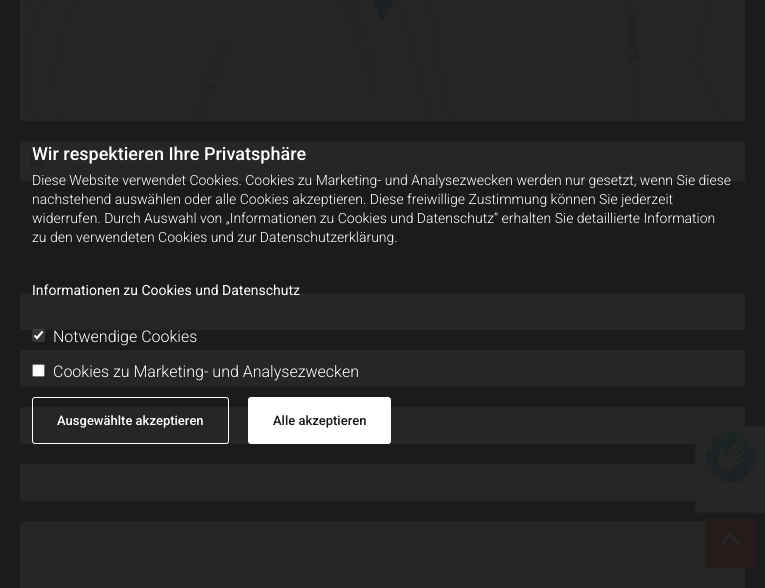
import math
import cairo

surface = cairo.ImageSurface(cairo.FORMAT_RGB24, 765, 588)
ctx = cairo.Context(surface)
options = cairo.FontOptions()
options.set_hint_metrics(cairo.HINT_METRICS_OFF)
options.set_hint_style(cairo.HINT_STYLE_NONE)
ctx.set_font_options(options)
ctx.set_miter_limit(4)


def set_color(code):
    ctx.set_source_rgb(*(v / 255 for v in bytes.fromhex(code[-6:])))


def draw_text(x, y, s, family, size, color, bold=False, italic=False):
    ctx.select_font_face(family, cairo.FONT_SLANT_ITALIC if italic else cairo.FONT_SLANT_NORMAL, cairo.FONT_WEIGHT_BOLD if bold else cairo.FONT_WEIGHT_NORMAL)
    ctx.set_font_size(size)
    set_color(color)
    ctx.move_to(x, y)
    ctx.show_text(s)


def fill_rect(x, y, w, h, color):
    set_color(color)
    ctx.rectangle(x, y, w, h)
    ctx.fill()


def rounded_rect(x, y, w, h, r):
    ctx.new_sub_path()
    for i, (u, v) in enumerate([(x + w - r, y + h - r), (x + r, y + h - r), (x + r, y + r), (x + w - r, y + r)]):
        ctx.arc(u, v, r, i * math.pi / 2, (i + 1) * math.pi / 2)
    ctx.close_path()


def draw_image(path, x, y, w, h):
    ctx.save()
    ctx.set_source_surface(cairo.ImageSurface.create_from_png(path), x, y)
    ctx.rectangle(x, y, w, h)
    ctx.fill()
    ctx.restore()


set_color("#1b1b1b")
ctx.paint()
draw_image("assets/img1.png", 20, 0, 725, 121)
draw_image("assets/img2.png", 372, 0, 21, 21)
fill_rect(20, 141, 725, 40, "#262626")
draw_image("assets/img3.png", 31, 151, 14, 15)
rounded_rect(20, 293, 725, 37, 3)
ctx.fill()
rounded_rect(20, 350, 725, 37, 3)
ctx.fill()
rounded_rect(20, 407, 725, 37, 3)
ctx.fill()
rounded_rect(20, 464, 725, 37, 3)
ctx.fill()
rounded_rect(20, 521, 725, 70, 3)
ctx.fill()
rounded_rect(695.5, 426.5, 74, 86, 3.5)
ctx.fill_preserve()
set_color("#232324")
ctx.set_line_width(1)
ctx.stroke()
draw_image("assets/img4.png", 706, 432, 50, 50)
draw_text(32, 160, "Wir respektieren Ihre Privatsphäre", "Roboto Medium", 18, "#ffffff")
draw_text(32, 185, "Diese Website verwendet Cookies. Cookies zu Marketing- und Analysezwecken werden nur gesetzt, wenn Sie diese", "Roboto Light", 14, "#ffffff")
draw_text(32, 204, "nachstehend auswählen oder alle Cookies akzeptieren. Diese freiwillige Zustimmung können Sie jederzeit", "Roboto Light", 14, "#ffffff")
draw_text(32, 223, "widerrufen. Durch Auswahl von „Informationen zu Cookies und Datenschutz“ erhalten Sie detaillierte Information", "Roboto Light", 14, "#ffffff")
draw_text(32, 242, "zu den verwendeten Cookies und zur Datenschutzerklärung.", "Roboto Light", 14, "#ffffff")
draw_text(32, 295, "Informationen zu Cookies und Datenschutz", "Roboto", 14, "#ffffff")
ctx.set_source_rgba(0.463, 0.463, 0.463, 0.3)
rounded_rect(32, 329, 13, 13, 2)
ctx.fill()
ctx.new_path()
ctx.move_to(34.5, 335.5)
ctx.line_to(37, 338)
ctx.line_to(42.5, 331.5)
set_color("#ffffff")
ctx.set_line_width(2.1)
ctx.stroke()
draw_text(53, 342, "Notwendige Cookies", "Roboto Light", 16, "#ffffff")
rounded_rect(32.5, 364.5, 12, 12, 1.5)
ctx.fill_preserve()
set_color("#767676")
ctx.set_line_width(1)
ctx.stroke()
draw_text(53, 377, "Cookies zu Marketing- und Analysezwecken", "Roboto Light", 16, "#ffffff")
rounded_rect(32.5, 397.5, 196, 46, 2.5)
ctx.stroke()
draw_text(57, 425, "Ausgewählte akzeptieren", "Roboto Medium", 13, "#ffffff")
rounded_rect(248.5, 397.5, 142, 46, 2.5)
ctx.fill_preserve()
ctx.stroke()
draw_text(273, 425, "Alle akzeptieren", "Roboto Medium", 13, "#181818")
set_color("#241b1b")
rounded_rect(705, 518, 50, 50, 3)
ctx.fill()
draw_image("assets/img5.png", 721, 533, 18, 11)
surface.write_to_png("output.png")
